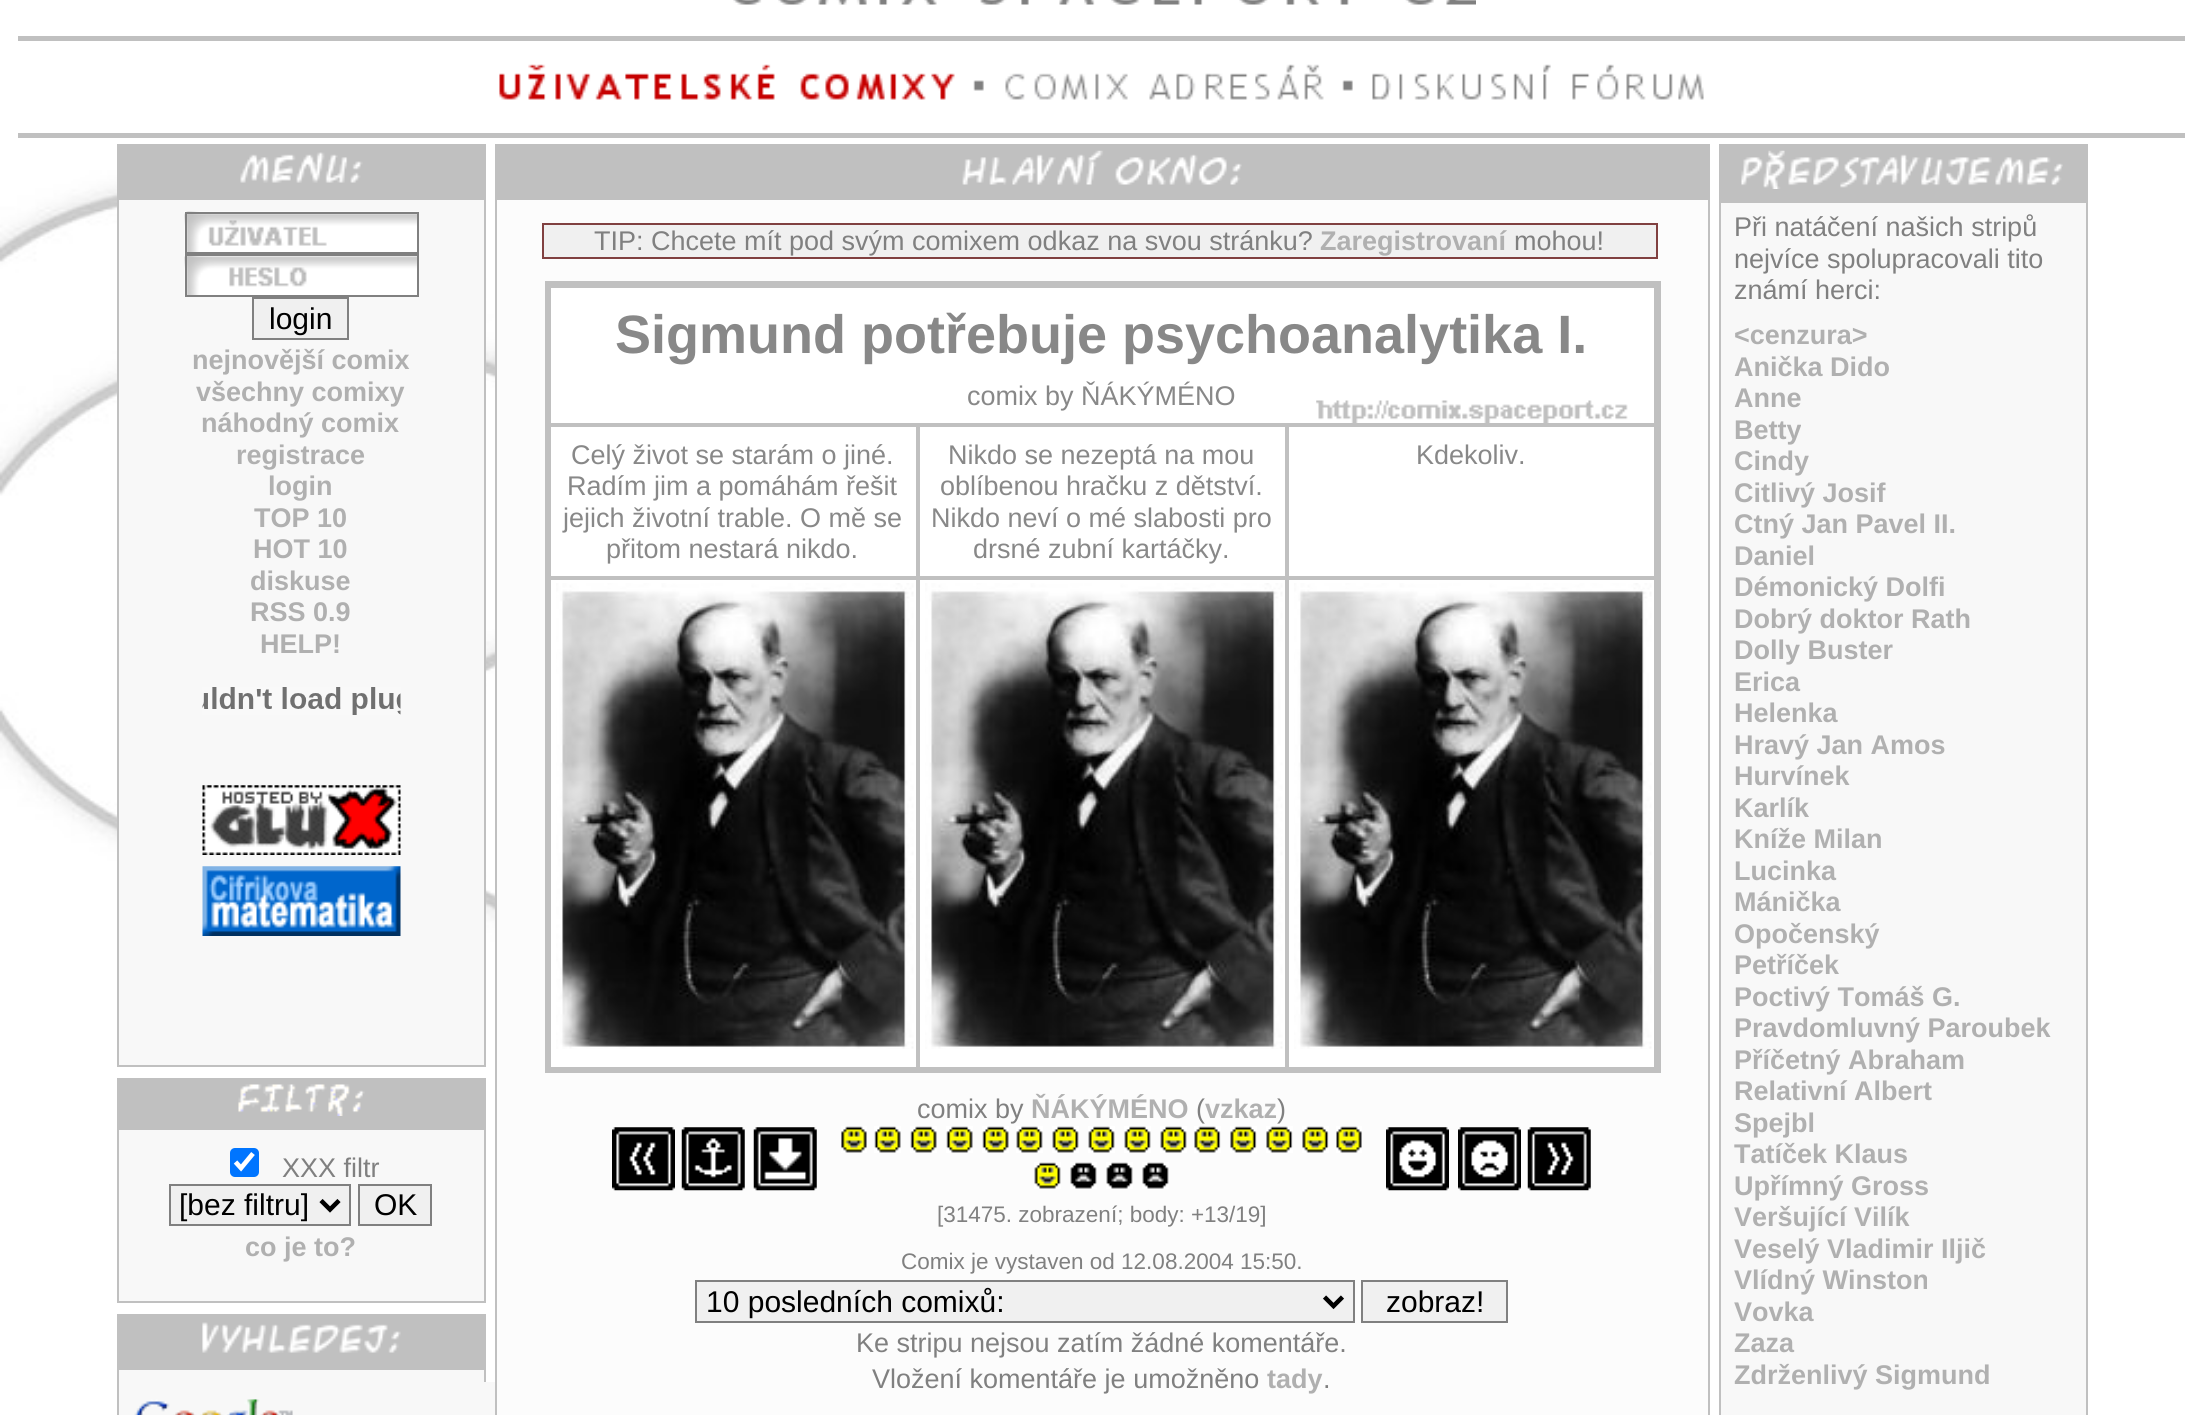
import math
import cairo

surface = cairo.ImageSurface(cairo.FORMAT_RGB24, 2202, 1415)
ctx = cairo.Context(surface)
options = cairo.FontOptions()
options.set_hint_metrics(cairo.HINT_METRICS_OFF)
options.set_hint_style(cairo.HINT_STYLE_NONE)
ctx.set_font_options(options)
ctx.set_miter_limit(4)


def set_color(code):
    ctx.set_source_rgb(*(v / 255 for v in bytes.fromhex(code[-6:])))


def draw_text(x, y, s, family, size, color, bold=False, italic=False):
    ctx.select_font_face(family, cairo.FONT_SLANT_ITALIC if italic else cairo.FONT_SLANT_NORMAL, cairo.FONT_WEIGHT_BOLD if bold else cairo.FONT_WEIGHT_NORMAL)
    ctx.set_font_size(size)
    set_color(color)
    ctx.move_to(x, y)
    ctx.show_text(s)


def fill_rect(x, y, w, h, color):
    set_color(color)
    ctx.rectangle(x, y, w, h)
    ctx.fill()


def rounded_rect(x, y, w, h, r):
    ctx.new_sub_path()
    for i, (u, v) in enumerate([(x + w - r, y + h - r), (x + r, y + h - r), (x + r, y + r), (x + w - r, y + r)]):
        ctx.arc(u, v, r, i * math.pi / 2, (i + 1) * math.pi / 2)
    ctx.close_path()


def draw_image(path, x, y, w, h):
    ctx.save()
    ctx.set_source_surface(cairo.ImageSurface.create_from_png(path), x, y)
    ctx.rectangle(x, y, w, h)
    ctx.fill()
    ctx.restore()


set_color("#ffffff")
ctx.paint()
draw_image("assets/img1.png", 0, 170, 495, 884)
draw_image("assets/img2.png", 733, 0, 743, 5)
fill_rect(18, 36, 2167, 5, "#c0c0c0")
fill_rect(18, 133, 2167, 5, "#c0c0c0")
draw_image("assets/img3.png", 499, 64, 456, 36)
draw_image("assets/img4.png", 973, 80, 11, 11)
draw_image("assets/img5.png", 1005, 64, 319, 36)
draw_image("assets/img4.png", 1342, 80, 11, 11)
draw_image("assets/img6.png", 1372, 64, 332, 36)
fill_rect(119, 200, 365, 865, "#f8f8f8")
ctx.rectangle(118, 145, 367, 921)
set_color("#c0c0c0")
ctx.stroke()
fill_rect(119, 146, 365, 54, "#c0c0c0")
draw_image("assets/img7.png", 240, 152, 123, 31)
draw_image("assets/img8.png", 184, 211, 235, 44)
ctx.rectangle(186, 213, 232, 40)
set_color("#808080")
ctx.stroke()
draw_image("assets/img9.png", 184, 254, 233, 43)
ctx.rectangle(186, 255, 232, 41)
ctx.stroke()
set_color("#f0f0f0")
ctx.rectangle(253, 298, 95, 41)
ctx.fill_preserve()
set_color("#808080")
ctx.stroke()
draw_text(269, 329, "login", "Liberation Sans", 30, "#000000")
draw_text(192, 369, "nejnovější comix", "Liberation Sans", 27, "#b0b0b0", bold=True)
draw_text(196, 401, "všechny comixy", "Liberation Sans", 27, "#b0b0b0", bold=True)
draw_text(201, 432, "náhodný comix", "Liberation Sans", 27, "#b0b0b0", bold=True)
draw_text(236, 464, "registrace", "Liberation Sans", 27, "#b0b0b0", bold=True)
draw_text(268, 495, "login", "Liberation Sans", 27, "#b0b0b0", bold=True)
draw_text(254, 527, "TOP 10", "Liberation Sans", 27, "#b0b0b0", bold=True)
draw_text(253, 558, "HOT 10", "Liberation Sans", 27, "#b0b0b0", bold=True)
draw_text(250, 590, "diskuse", "Liberation Sans", 27, "#b0b0b0", bold=True)
draw_text(250, 621, "RSS 0.9", "Liberation Sans", 27, "#b0b0b0", bold=True)
draw_text(260, 653, "HELP!", "Liberation Sans", 27, "#b0b0b0", bold=True)
draw_image("assets/img10.png", 202, 687, 199, 28)
draw_image("assets/img11.png", 202, 785, 199, 70)
draw_image("assets/img12.png", 202, 866, 199, 70)
fill_rect(119, 1130, 365, 171, "#f8f8f8")
ctx.rectangle(118, 1079, 367, 223)
set_color("#c0c0c0")
ctx.stroke()
fill_rect(119, 1080, 365, 50, "#c0c0c0")
draw_image("assets/img13.png", 238, 1084, 127, 32)
set_color("#0075ff")
rounded_rect(230, 1148, 29, 29, 5)
ctx.fill()
ctx.new_path()
ctx.move_to(235.5, 1162)
ctx.line_to(241, 1168)
ctx.line_to(253, 1153.5)
set_color("#ffffff")
ctx.set_line_width(4.7)
ctx.stroke()
draw_text(282, 1177, "XXX filtr", "Liberation Sans", 27, "#808080")
set_color("#f0f0f0")
ctx.rectangle(170, 1185, 180, 40)
ctx.fill_preserve()
set_color("#808080")
ctx.set_line_width(2)
ctx.stroke()
ctx.new_path()
ctx.move_to(321, 1200.5)
ctx.line_to(330, 1209.5)
ctx.line_to(339, 1200.5)
set_color("#000000")
ctx.set_line_width(4.5)
ctx.stroke()
draw_text(179, 1215, "[bez filtru]", "Liberation Sans", 30, "#000000")
set_color("#f0f0f0")
ctx.rectangle(359, 1185, 72, 40)
ctx.fill_preserve()
set_color("#808080")
ctx.set_line_width(2)
ctx.stroke()
draw_text(374, 1215, "OK", "Liberation Sans", 30, "#000000")
draw_text(245, 1256, "co je to?", "Liberation Sans", 27, "#b0b0b0", bold=True)
fill_rect(119, 1370, 365, 12, "#f8f8f8")
ctx.rectangle(118, 1315, 367, 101)
set_color("#c0c0c0")
ctx.stroke()
fill_rect(119, 1316, 365, 54, "#c0c0c0")
draw_image("assets/img14.png", 202, 1322, 199, 31)
fill_rect(119, 1382, 376, 33, "#f8f8f8")
draw_image("assets/img15.png", 134, 1399, 159, 16)
fill_rect(497, 200, 1211, 1215, "#fcfcfc")
ctx.rectangle(496, 145, 1213, 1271)
set_color("#c0c0c0")
ctx.stroke()
fill_rect(497, 146, 1211, 54, "#c0c0c0")
draw_image("assets/img16.png", 962, 150, 280, 35)
set_color("#f0f0f0")
ctx.rectangle(543, 224, 1114, 34)
ctx.fill_preserve()
set_color("#804040")
ctx.stroke()
draw_text(594, 250, "TIP: Chcete mít pod svým comixem odkaz na svou stránku?", "Liberation Sans", 27, "#808080")
draw_text(1320, 250, "Zaregistrovaní", "Liberation Sans", 27, "#b0b0b0", bold=True)
draw_text(1514, 250, "mohou!", "Liberation Sans", 27, "#808080")
fill_rect(920, 427, 734, 149, "#ffffff")
ctx.rectangle(547.5, 283.5, 1111, 787)
set_color("#c0c0c0")
ctx.set_line_width(5)
ctx.stroke()
fill_rect(551, 288, 1103, 135, "#ffffff")
draw_image("assets/img17.png", 1316, 400, 312, 23)
ctx.rectangle(550, 287, 1105, 137)
set_color("#c0c0c0")
ctx.set_line_width(2)
ctx.stroke()
draw_text(615, 353, "Sigmund potřebuje psychoanalytika I.", "Liberation Sans", 54, "#888888", bold=True)
draw_text(967, 405, "comix by ŇÁKÝMÉNO", "Liberation Sans", 27, "#888888")
set_color("#ffffff")
ctx.rectangle(550, 426, 367, 151)
ctx.fill_preserve()
set_color("#c0c0c0")
ctx.stroke()
draw_text(571, 464, "Celý život se starám o jiné.", "Liberation Sans", 27, "#888888")
draw_text(567, 495, "Radím jim a pomáhám řešit", "Liberation Sans", 27, "#888888")
draw_text(563, 527, "jejich životní trable. O mě se", "Liberation Sans", 27, "#888888")
draw_text(606, 558, "přitom nestará nikdo.", "Liberation Sans", 27, "#888888")
ctx.rectangle(919, 426, 367, 151)
set_color("#c0c0c0")
ctx.stroke()
draw_text(948, 464, "Nikdo se nezeptá na mou", "Liberation Sans", 27, "#888888")
draw_text(940, 495, "oblíbenou hračku z dětství.", "Liberation Sans", 27, "#888888")
draw_text(931, 527, "Nikdo neví o mé slabosti pro", "Liberation Sans", 27, "#888888")
draw_text(973, 558, "drsné zubní kartáčky.", "Liberation Sans", 27, "#888888")
ctx.rectangle(1288, 426, 367, 151)
set_color("#c0c0c0")
ctx.stroke()
draw_text(1416, 464, "Kdekoliv.", "Liberation Sans", 27, "#888888")
set_color("#ffffff")
ctx.rectangle(550, 579, 367, 489)
ctx.fill_preserve()
set_color("#c0c0c0")
ctx.stroke()
draw_image("assets/img18.png", 556, 583, 358, 466)
set_color("#ffffff")
ctx.rectangle(919, 579, 367, 489)
ctx.fill_preserve()
set_color("#c0c0c0")
ctx.stroke()
draw_image("assets/img19.png", 925, 583, 358, 466)
set_color("#ffffff")
ctx.rectangle(1288, 579, 367, 489)
ctx.fill_preserve()
set_color("#c0c0c0")
ctx.stroke()
draw_image("assets/img20.png", 1294, 583, 358, 466)
draw_image("assets/img21.png", 612, 1127, 63, 64)
draw_image("assets/img22.png", 681, 1127, 64, 64)
draw_image("assets/img23.png", 753, 1127, 64, 64)
draw_text(917, 1118, "comix by", "Liberation Sans", 27, "#808080")
draw_text(1031, 1118, "ŇÁKÝMÉNO", "Liberation Sans", 27, "#b0b0b0", bold=True)
draw_text(1196, 1118, "(", "Liberation Sans", 27, "#808080")
draw_text(1205, 1118, "vzkaz", "Liberation Sans", 27, "#b0b0b0", bold=True)
draw_text(1277, 1118, ")", "Liberation Sans", 27, "#808080")
draw_image("assets/img24.png", 841, 1126, 26, 27)
draw_image("assets/img25.png", 874, 1126, 27, 27)
draw_image("assets/img26.png", 910, 1126, 27, 27)
draw_image("assets/img26.png", 946, 1126, 27, 27)
draw_image("assets/img26.png", 982, 1126, 27, 27)
draw_image("assets/img27.png", 1016, 1126, 27, 27)
draw_image("assets/img28.png", 1052, 1126, 27, 27)
draw_image("assets/img27.png", 1088, 1126, 27, 27)
draw_image("assets/img28.png", 1124, 1126, 27, 27)
draw_image("assets/img28.png", 1160, 1126, 27, 27)
draw_image("assets/img29.png", 1194, 1126, 27, 27)
draw_image("assets/img29.png", 1230, 1126, 27, 27)
draw_image("assets/img29.png", 1266, 1126, 27, 27)
draw_image("assets/img29.png", 1302, 1126, 27, 27)
draw_image("assets/img30.png", 1336, 1126, 26, 27)
draw_image("assets/img28.png", 1034, 1162, 27, 27)
draw_image("assets/img31.png", 1070, 1162, 27, 27)
draw_image("assets/img32.png", 1106, 1162, 27, 27)
draw_image("assets/img32.png", 1142, 1162, 27, 27)
draw_text(937, 1222, "[31475. zobrazení; body: +13/19]", "Liberation Sans", 22.5, "#808080")
draw_image("assets/img33.png", 1386, 1127, 63, 64)
draw_image("assets/img34.png", 1458, 1127, 63, 64)
draw_image("assets/img35.png", 1527, 1127, 64, 64)
draw_text(901, 1269, "Comix je vystaven od 12.08.2004 15:50.", "Liberation Sans", 22.5, "#808080")
set_color("#f0f0f0")
ctx.rectangle(696, 1281, 658, 41)
ctx.fill_preserve()
set_color("#808080")
ctx.stroke()
ctx.new_path()
ctx.move_to(1324.5, 1297)
ctx.line_to(1333.5, 1306)
ctx.line_to(1342.5, 1297)
set_color("#000000")
ctx.set_line_width(4.5)
ctx.stroke()
draw_text(706, 1312, "10 posledních comixů:", "Liberation Sans", 30, "#000000")
set_color("#f0f0f0")
ctx.rectangle(1362, 1281, 145, 41)
ctx.fill_preserve()
set_color("#808080")
ctx.set_line_width(2)
ctx.stroke()
draw_text(1386, 1312, "zobraz!", "Liberation Sans", 30, "#000000")
draw_text(856, 1352, "Ke stripu nejsou zatím žádné komentáře.", "Liberation Sans", 27, "#808080")
draw_text(872, 1388, "Vložení komentáře je umožněno", "Liberation Sans", 27, "#808080")
draw_text(1267, 1388, "tady", "Liberation Sans", 27, "#b0b0b0", bold=True)
draw_text(1323, 1388, ".", "Liberation Sans", 27, "#808080")
fill_rect(1721, 203, 365, 1212, "#f8f8f8")
ctx.rectangle(1720, 145, 367, 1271)
set_color("#c0c0c0")
ctx.stroke()
fill_rect(1721, 146, 365, 57, "#c0c0c0")
draw_image("assets/img36.png", 1741, 150, 322, 39)
draw_text(1734, 236, "Při natáčení našich stripů", "Liberation Sans", 27, "#808080")
draw_text(1734, 268, "nejvíce spolupracovali tito", "Liberation Sans", 27, "#808080")
draw_text(1734, 299, "známí herci:", "Liberation Sans", 27, "#808080")
draw_text(1734, 344, "<cenzura>", "Liberation Sans", 27, "#b0b0b0", bold=True)
draw_text(1734, 376, "Anička Dido", "Liberation Sans", 27, "#b0b0b0", bold=True)
draw_text(1734, 407, "Anne", "Liberation Sans", 27, "#b0b0b0", bold=True)
draw_text(1734, 439, "Betty", "Liberation Sans", 27, "#b0b0b0", bold=True)
draw_text(1734, 470, "Cindy", "Liberation Sans", 27, "#b0b0b0", bold=True)
draw_text(1734, 502, "Citlivý Josif", "Liberation Sans", 27, "#b0b0b0", bold=True)
draw_text(1734, 533, "Ctný Jan Pavel II.", "Liberation Sans", 27, "#b0b0b0", bold=True)
draw_text(1734, 565, "Daniel", "Liberation Sans", 27, "#b0b0b0", bold=True)
draw_text(1734, 596, "Démonický Dolfi", "Liberation Sans", 27, "#b0b0b0", bold=True)
draw_text(1734, 628, "Dobrý doktor Rath", "Liberation Sans", 27, "#b0b0b0", bold=True)
draw_text(1734, 659, "Dolly Buster", "Liberation Sans", 27, "#b0b0b0", bold=True)
draw_text(1734, 691, "Erica", "Liberation Sans", 27, "#b0b0b0", bold=True)
draw_text(1734, 722, "Helenka", "Liberation Sans", 27, "#b0b0b0", bold=True)
draw_text(1734, 754, "Hravý Jan Amos", "Liberation Sans", 27, "#b0b0b0", bold=True)
draw_text(1734, 785, "Hurvínek", "Liberation Sans", 27, "#b0b0b0", bold=True)
draw_text(1734, 817, "Karlík", "Liberation Sans", 27, "#b0b0b0", bold=True)
draw_text(1734, 848, "Kníže Milan", "Liberation Sans", 27, "#b0b0b0", bold=True)
draw_text(1734, 880, "Lucinka", "Liberation Sans", 27, "#b0b0b0", bold=True)
draw_text(1734, 911, "Mánička", "Liberation Sans", 27, "#b0b0b0", bold=True)
draw_text(1734, 943, "Opočenský", "Liberation Sans", 27, "#b0b0b0", bold=True)
draw_text(1734, 974, "Petříček", "Liberation Sans", 27, "#b0b0b0", bold=True)
draw_text(1734, 1006, "Poctivý Tomáš G.", "Liberation Sans", 27, "#b0b0b0", bold=True)
draw_text(1734, 1037, "Pravdomluvný Paroubek", "Liberation Sans", 27, "#b0b0b0", bold=True)
draw_text(1734, 1069, "Příčetný Abraham", "Liberation Sans", 27, "#b0b0b0", bold=True)
draw_text(1734, 1100, "Relativní Albert", "Liberation Sans", 27, "#b0b0b0", bold=True)
draw_text(1734, 1132, "Spejbl", "Liberation Sans", 27, "#b0b0b0", bold=True)
draw_text(1734, 1163, "Tatíček Klaus", "Liberation Sans", 27, "#b0b0b0", bold=True)
draw_text(1734, 1195, "Upřímný Gross", "Liberation Sans", 27, "#b0b0b0", bold=True)
draw_text(1734, 1226, "Veršující Vilík", "Liberation Sans", 27, "#b0b0b0", bold=True)
draw_text(1734, 1258, "Veselý Vladimir Iljič", "Liberation Sans", 27, "#b0b0b0", bold=True)
draw_text(1734, 1289, "Vlídný Winston", "Liberation Sans", 27, "#b0b0b0", bold=True)
draw_text(1734, 1321, "Vovka", "Liberation Sans", 27, "#b0b0b0", bold=True)
draw_text(1734, 1352, "Zaza", "Liberation Sans", 27, "#b0b0b0", bold=True)
draw_text(1734, 1384, "Zdrženlivý Sigmund", "Liberation Sans", 27, "#b0b0b0", bold=True)
surface.write_to_png("output.png")
